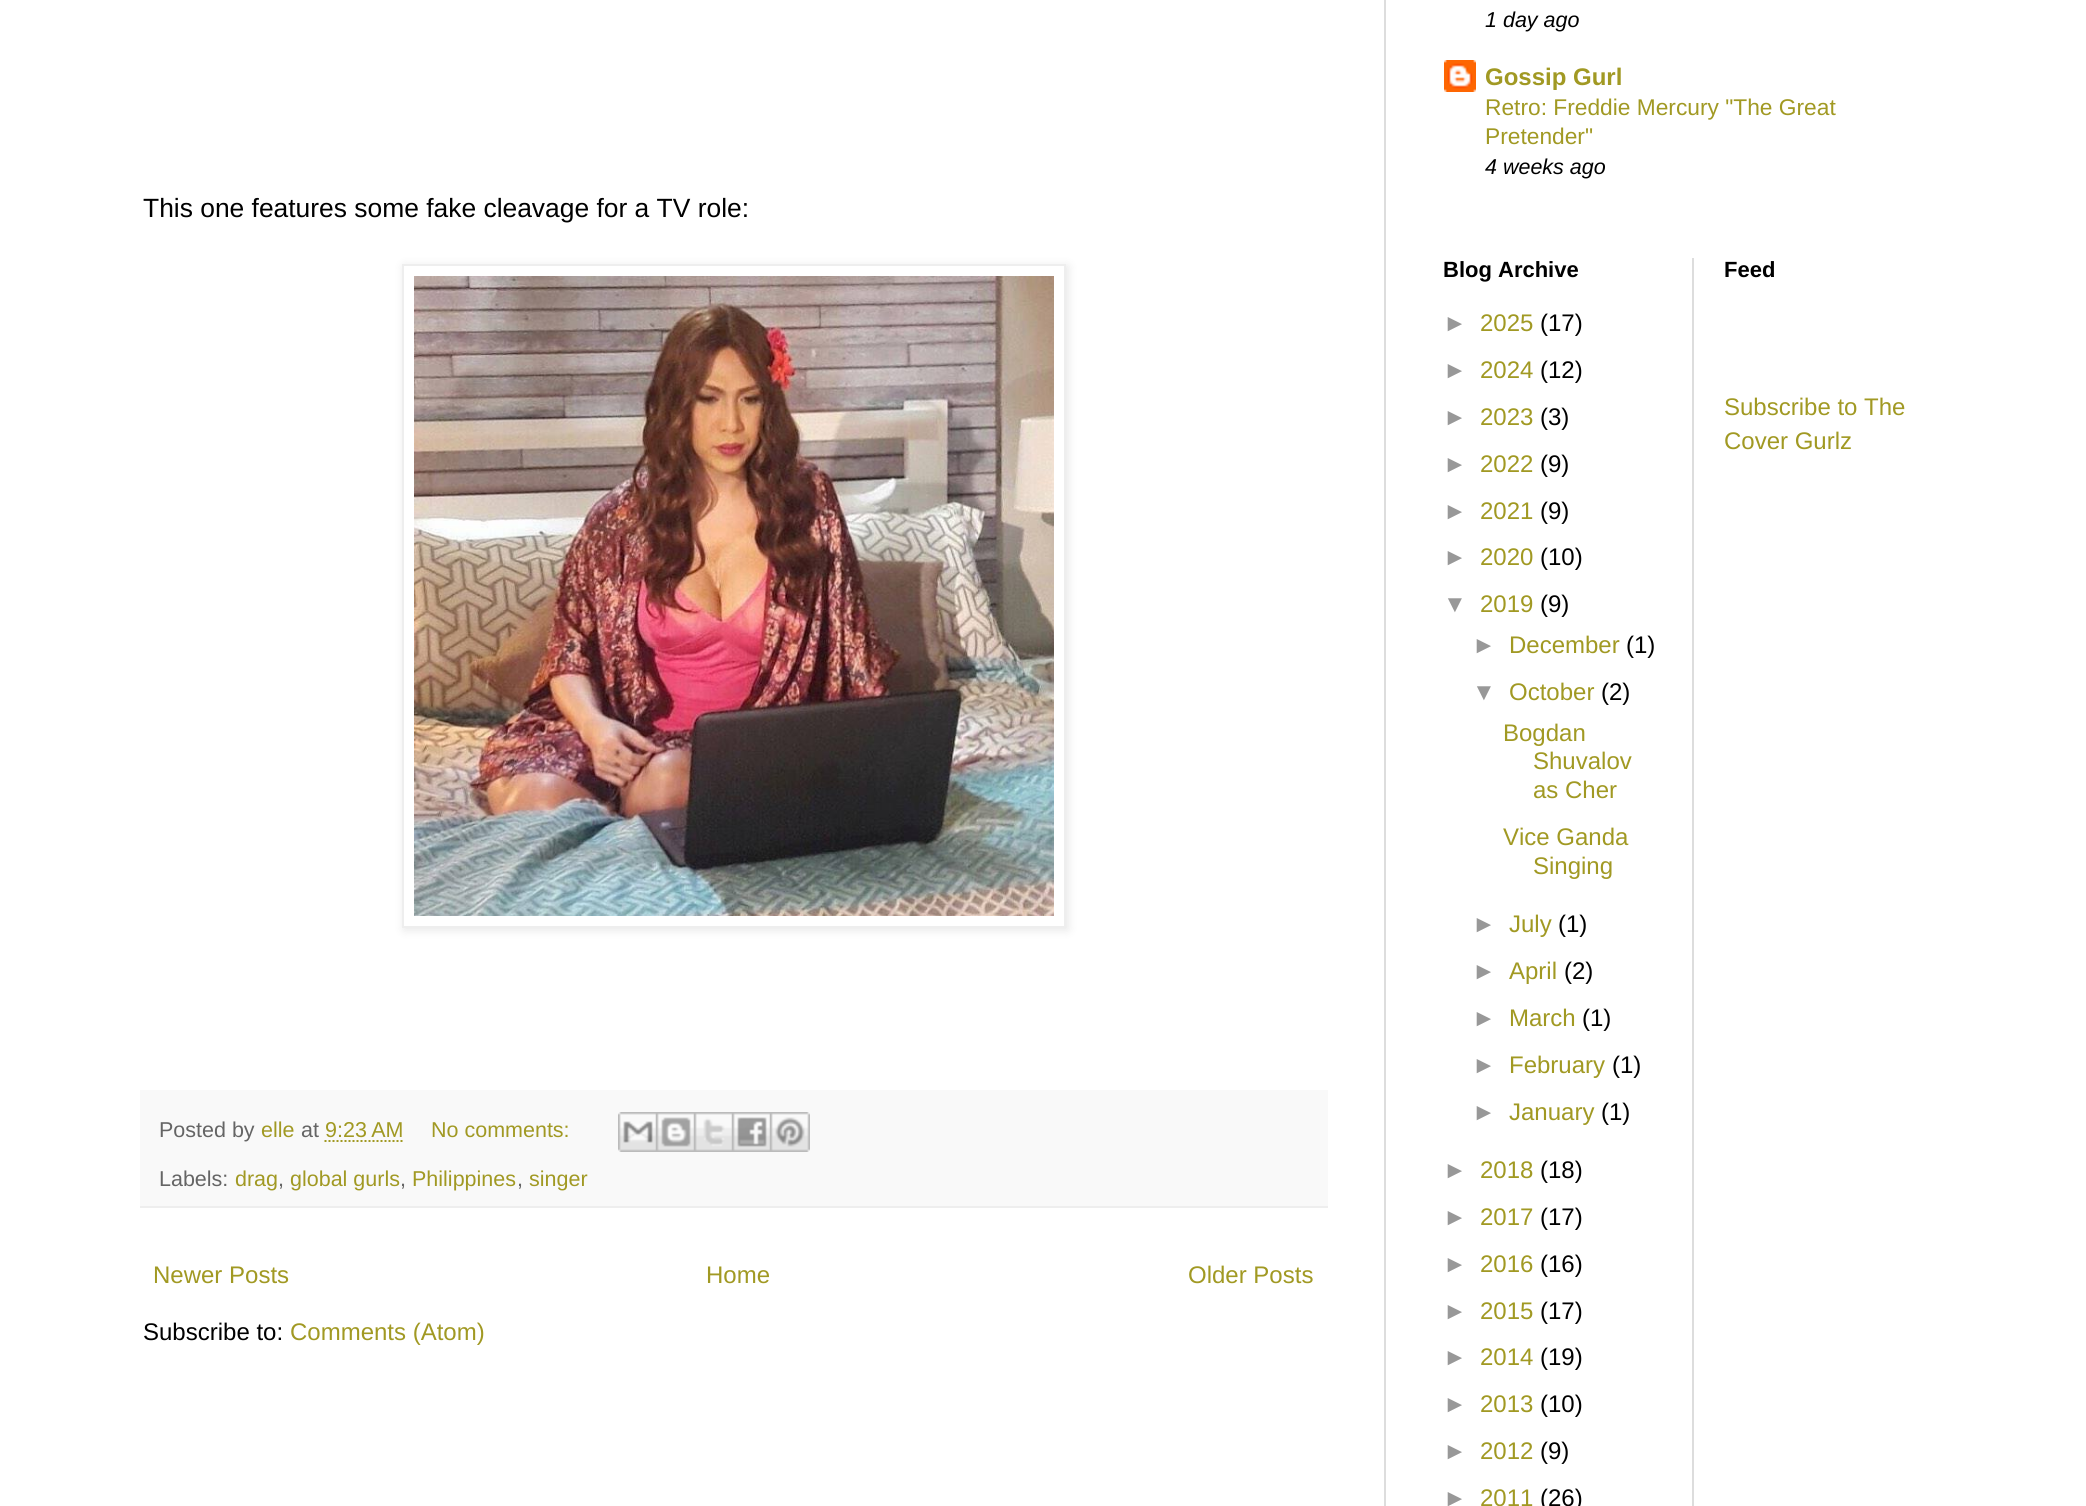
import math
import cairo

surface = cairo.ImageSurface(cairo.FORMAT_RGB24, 2086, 1506)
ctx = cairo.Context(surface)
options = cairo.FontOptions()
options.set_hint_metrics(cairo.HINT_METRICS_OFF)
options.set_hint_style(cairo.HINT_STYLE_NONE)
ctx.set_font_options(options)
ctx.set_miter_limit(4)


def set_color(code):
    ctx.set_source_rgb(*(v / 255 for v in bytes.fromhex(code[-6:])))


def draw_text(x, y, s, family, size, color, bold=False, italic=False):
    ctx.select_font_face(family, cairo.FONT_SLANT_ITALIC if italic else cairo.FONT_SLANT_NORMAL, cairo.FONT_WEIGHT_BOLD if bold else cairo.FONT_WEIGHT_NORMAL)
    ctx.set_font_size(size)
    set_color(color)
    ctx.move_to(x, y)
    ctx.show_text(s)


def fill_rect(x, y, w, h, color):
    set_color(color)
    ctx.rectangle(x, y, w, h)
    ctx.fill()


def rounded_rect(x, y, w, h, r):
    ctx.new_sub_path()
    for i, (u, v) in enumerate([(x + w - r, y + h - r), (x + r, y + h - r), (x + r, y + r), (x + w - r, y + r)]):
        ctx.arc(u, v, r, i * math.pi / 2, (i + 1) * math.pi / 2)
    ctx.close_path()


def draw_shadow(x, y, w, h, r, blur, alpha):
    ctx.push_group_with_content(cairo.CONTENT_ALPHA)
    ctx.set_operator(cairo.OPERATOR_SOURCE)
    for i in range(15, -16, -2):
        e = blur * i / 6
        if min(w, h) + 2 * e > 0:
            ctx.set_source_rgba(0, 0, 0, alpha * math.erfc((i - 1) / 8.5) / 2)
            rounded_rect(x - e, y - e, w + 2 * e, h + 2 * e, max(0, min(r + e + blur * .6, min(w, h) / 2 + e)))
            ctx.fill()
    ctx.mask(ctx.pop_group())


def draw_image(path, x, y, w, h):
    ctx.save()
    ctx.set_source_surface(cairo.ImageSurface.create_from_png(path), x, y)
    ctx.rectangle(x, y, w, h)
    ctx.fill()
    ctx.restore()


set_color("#ffffff")
ctx.paint()
fill_rect(1384, 0, 2, 1506, "#dddddd")
draw_text(143, 217, "This one features some fake cleavage for a TV role:", "Liberation Sans", 26.4, "#000000")
ctx.save()
ctx.set_fill_rule(cairo.FILL_RULE_EVEN_ODD)
ctx.new_path()
ctx.move_to(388, 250)
ctx.line_to(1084, 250)
ctx.line_to(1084, 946)
ctx.line_to(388, 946)
ctx.close_path()
ctx.move_to(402, 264)
ctx.line_to(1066, 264)
ctx.line_to(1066, 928)
ctx.line_to(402, 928)
ctx.close_path()
ctx.clip()
set_color("#000000")
draw_shadow(404, 266, 664, 664, 0, 5, 0.1)
ctx.restore()
ctx.rectangle(403, 265, 662, 662)
set_color("#eeeeee")
ctx.stroke()
draw_image("assets/img1.png", 414, 276, 640, 640)
fill_rect(140, 1090, 1188, 116, "#f9f9f9")
fill_rect(140, 1206, 1188, 2, "#eeeeee")
draw_text(159, 1137, "Posted by", "Liberation Sans", 21.5, "#656565")
draw_text(261, 1137, "elle", "Liberation Sans", 21.5, "#a19923")
draw_text(301, 1137, "at", "Liberation Sans", 21.5, "#656565")
draw_text(325, 1137, "9:23 AM", "Liberation Sans", 21.5, "#a19923")
ctx.new_path()
ctx.move_to(324.5, 1141)
ctx.line_to(403.5, 1141)
ctx.set_dash([2, 2])
ctx.stroke()
draw_text(431, 1137, "No comments:", "Liberation Sans", 21.5, "#a19923")
draw_image("assets/img2.png", 618, 1112, 38, 40)
draw_image("assets/img3.png", 656, 1112, 38, 40)
draw_image("assets/img4.png", 694, 1112, 38, 40)
draw_image("assets/img5.png", 732, 1112, 38, 40)
draw_image("assets/img6.png", 770, 1112, 40, 40)
draw_text(159, 1186, "Labels:", "Liberation Sans", 21.5, "#656565")
draw_text(235, 1186, "drag", "Liberation Sans", 21.5, "#a19923")
draw_text(278, 1186, ",", "Liberation Sans", 21.5, "#656565")
draw_text(290, 1186, "global gurls", "Liberation Sans", 21.5, "#a19923")
draw_text(400, 1186, ",", "Liberation Sans", 21.5, "#656565")
draw_text(412, 1186, "Philippines", "Liberation Sans", 21.5, "#a19923")
draw_text(517, 1186, ",", "Liberation Sans", 21.5, "#656565")
draw_text(529, 1186, "singer", "Liberation Sans", 21.5, "#a19923")
draw_text(153, 1283, "Newer Posts", "Liberation Sans", 24, "#a19923")
draw_text(706, 1283, "Home", "Liberation Sans", 24, "#a19923")
draw_text(1188, 1283, "Older Posts", "Liberation Sans", 24, "#a19923")
draw_text(143, 1340, "Subscribe to:", "Liberation Sans", 24, "#000000")
draw_text(290, 1340, "Comments (Atom)", "Liberation Sans", 24, "#a19923")
draw_text(1485, 27, "1 day ago", "Liberation Sans", 21.5, "#000000", italic=True)
draw_image("assets/img7.png", 1444, 60, 32, 32)
draw_text(1485, 85, "Gossip Gurl", "Liberation Sans", 24, "#a19923", bold=True)
draw_text(1485, 115, "Retro: Freddie Mercury \"The Great", "Liberation Sans", 22.75, "#a19923")
draw_text(1485, 144, "Pretender\"", "Liberation Sans", 22.75, "#a19923")
draw_text(1485, 174, "4 weeks ago", "Liberation Sans", 21.5, "#000000", italic=True)
draw_text(1443, 277, "Blog Archive", "Liberation Sans", 22, "#000000", bold=True)
draw_text(1443, 331, "►", "Liberation Sans", 24, "#989898")
draw_text(1480, 331, "2025", "Liberation Sans", 24, "#a19923")
draw_text(1540, 331, "(17)", "Liberation Sans", 24, "#000000")
draw_text(1443, 378, "►", "Liberation Sans", 24, "#989898")
draw_text(1480, 378, "2024", "Liberation Sans", 24, "#a19923")
draw_text(1540, 378, "(12)", "Liberation Sans", 24, "#000000")
draw_text(1443, 425, "►", "Liberation Sans", 24, "#989898")
draw_text(1480, 425, "2023", "Liberation Sans", 24, "#a19923")
draw_text(1540, 425, "(3)", "Liberation Sans", 24, "#000000")
draw_text(1443, 472, "►", "Liberation Sans", 24, "#989898")
draw_text(1480, 472, "2022", "Liberation Sans", 24, "#a19923")
draw_text(1540, 472, "(9)", "Liberation Sans", 24, "#000000")
draw_text(1443, 519, "►", "Liberation Sans", 24, "#989898")
draw_text(1480, 519, "2021", "Liberation Sans", 24, "#a19923")
draw_text(1540, 519, "(9)", "Liberation Sans", 24, "#000000")
draw_text(1443, 565, "►", "Liberation Sans", 24, "#989898")
draw_text(1480, 565, "2020", "Liberation Sans", 24, "#a19923")
draw_text(1540, 565, "(10)", "Liberation Sans", 24, "#000000")
draw_text(1443, 612, "▼", "Liberation Sans", 24, "#989898")
draw_text(1480, 612, "2019", "Liberation Sans", 24, "#a19923")
draw_text(1540, 612, "(9)", "Liberation Sans", 24, "#000000")
draw_text(1472, 653, "►", "Liberation Sans", 24, "#989898")
draw_text(1509, 653, "December", "Liberation Sans", 24, "#a19923")
draw_text(1626, 653, "(1)", "Liberation Sans", 24, "#000000")
draw_text(1472, 700, "▼", "Liberation Sans", 24, "#989898")
draw_text(1509, 700, "October", "Liberation Sans", 24, "#a19923")
draw_text(1601, 700, "(2)", "Liberation Sans", 24, "#000000")
draw_text(1503, 741, "Bogdan", "Liberation Sans", 24, "#a19923")
draw_text(1533, 769, "Shuvalov", "Liberation Sans", 24, "#a19923")
draw_text(1533, 798, "as Cher", "Liberation Sans", 24, "#a19923")
draw_text(1503, 845, "Vice Ganda", "Liberation Sans", 24, "#a19923")
draw_text(1533, 874, "Singing", "Liberation Sans", 24, "#a19923")
draw_text(1472, 932, "►", "Liberation Sans", 24, "#989898")
draw_text(1509, 932, "July", "Liberation Sans", 24, "#a19923")
draw_text(1558, 932, "(1)", "Liberation Sans", 24, "#000000")
draw_text(1472, 979, "►", "Liberation Sans", 24, "#989898")
draw_text(1509, 979, "April", "Liberation Sans", 24, "#a19923")
draw_text(1564, 979, "(2)", "Liberation Sans", 24, "#000000")
draw_text(1472, 1026, "►", "Liberation Sans", 24, "#989898")
draw_text(1509, 1026, "March", "Liberation Sans", 24, "#a19923")
draw_text(1582, 1026, "(1)", "Liberation Sans", 24, "#000000")
draw_text(1472, 1073, "►", "Liberation Sans", 24, "#989898")
draw_text(1509, 1073, "February", "Liberation Sans", 24, "#a19923")
draw_text(1612, 1073, "(1)", "Liberation Sans", 24, "#000000")
draw_text(1472, 1120, "►", "Liberation Sans", 24, "#989898")
draw_text(1509, 1120, "January", "Liberation Sans", 24, "#a19923")
draw_text(1601, 1120, "(1)", "Liberation Sans", 24, "#000000")
draw_text(1443, 1178, "►", "Liberation Sans", 24, "#989898")
draw_text(1480, 1178, "2018", "Liberation Sans", 24, "#a19923")
draw_text(1540, 1178, "(18)", "Liberation Sans", 24, "#000000")
draw_text(1443, 1225, "►", "Liberation Sans", 24, "#989898")
draw_text(1480, 1225, "2017", "Liberation Sans", 24, "#a19923")
draw_text(1540, 1225, "(17)", "Liberation Sans", 24, "#000000")
draw_text(1443, 1272, "►", "Liberation Sans", 24, "#989898")
draw_text(1480, 1272, "2016", "Liberation Sans", 24, "#a19923")
draw_text(1540, 1272, "(16)", "Liberation Sans", 24, "#000000")
draw_text(1443, 1319, "►", "Liberation Sans", 24, "#989898")
draw_text(1480, 1319, "2015", "Liberation Sans", 24, "#a19923")
draw_text(1540, 1319, "(17)", "Liberation Sans", 24, "#000000")
draw_text(1443, 1365, "►", "Liberation Sans", 24, "#989898")
draw_text(1480, 1365, "2014", "Liberation Sans", 24, "#a19923")
draw_text(1540, 1365, "(19)", "Liberation Sans", 24, "#000000")
draw_text(1443, 1412, "►", "Liberation Sans", 24, "#989898")
draw_text(1480, 1412, "2013", "Liberation Sans", 24, "#a19923")
draw_text(1540, 1412, "(10)", "Liberation Sans", 24, "#000000")
draw_text(1443, 1459, "►", "Liberation Sans", 24, "#989898")
draw_text(1480, 1459, "2012", "Liberation Sans", 24, "#a19923")
draw_text(1540, 1459, "(9)", "Liberation Sans", 24, "#000000")
draw_text(1443, 1506, "►", "Liberation Sans", 24, "#989898")
draw_text(1480, 1506, "2011", "Liberation Sans", 24, "#a19923")
draw_text(1540, 1506, "(26)", "Liberation Sans", 24, "#000000")
fill_rect(1692, 258, 2, 1248, "#dddddd")
draw_text(1724, 277, "Feed", "Liberation Sans", 22, "#000000", bold=True)
draw_text(1724, 415, "Subscribe to The", "Liberation Sans", 24, "#a19923")
draw_text(1724, 449, "Cover Gurlz", "Liberation Sans", 24, "#a19923")
surface.write_to_png("output.png")
